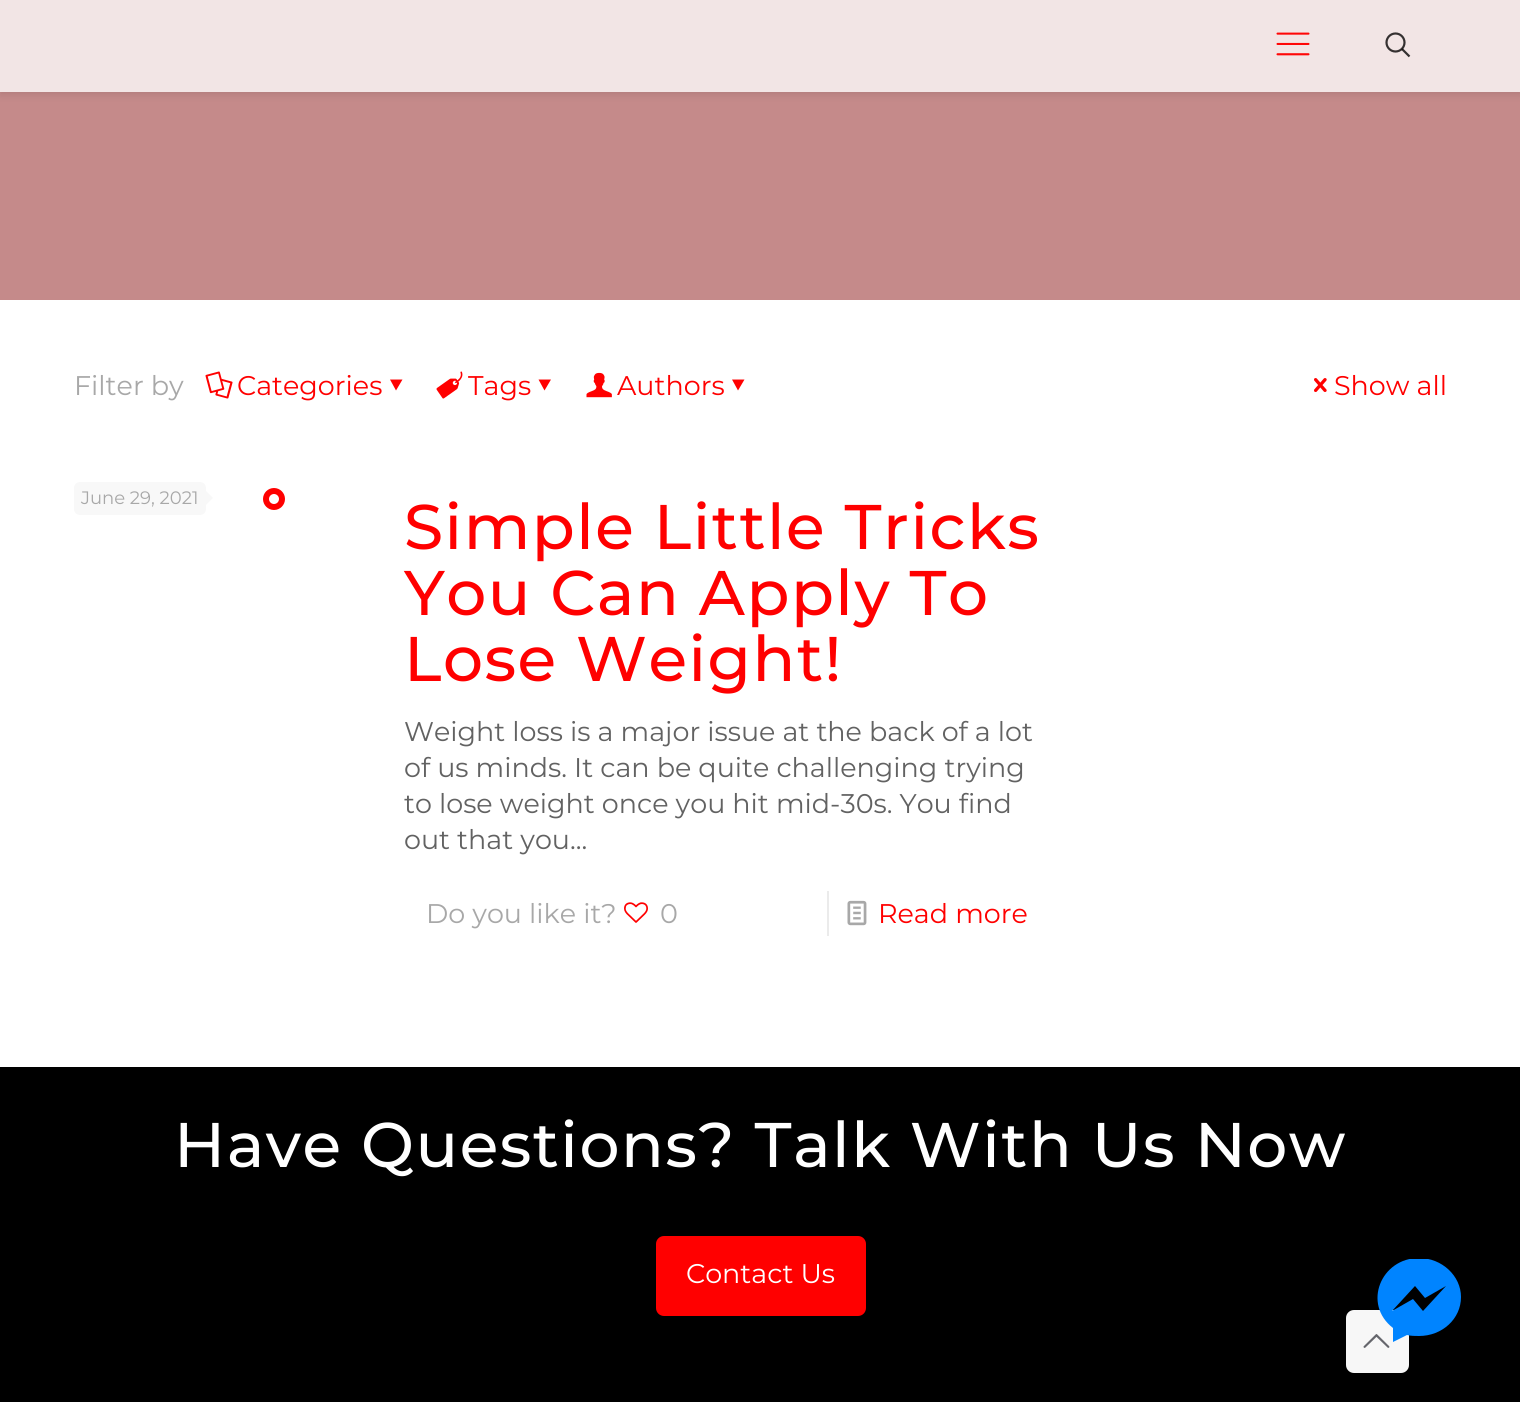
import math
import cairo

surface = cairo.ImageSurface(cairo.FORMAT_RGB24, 1520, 1402)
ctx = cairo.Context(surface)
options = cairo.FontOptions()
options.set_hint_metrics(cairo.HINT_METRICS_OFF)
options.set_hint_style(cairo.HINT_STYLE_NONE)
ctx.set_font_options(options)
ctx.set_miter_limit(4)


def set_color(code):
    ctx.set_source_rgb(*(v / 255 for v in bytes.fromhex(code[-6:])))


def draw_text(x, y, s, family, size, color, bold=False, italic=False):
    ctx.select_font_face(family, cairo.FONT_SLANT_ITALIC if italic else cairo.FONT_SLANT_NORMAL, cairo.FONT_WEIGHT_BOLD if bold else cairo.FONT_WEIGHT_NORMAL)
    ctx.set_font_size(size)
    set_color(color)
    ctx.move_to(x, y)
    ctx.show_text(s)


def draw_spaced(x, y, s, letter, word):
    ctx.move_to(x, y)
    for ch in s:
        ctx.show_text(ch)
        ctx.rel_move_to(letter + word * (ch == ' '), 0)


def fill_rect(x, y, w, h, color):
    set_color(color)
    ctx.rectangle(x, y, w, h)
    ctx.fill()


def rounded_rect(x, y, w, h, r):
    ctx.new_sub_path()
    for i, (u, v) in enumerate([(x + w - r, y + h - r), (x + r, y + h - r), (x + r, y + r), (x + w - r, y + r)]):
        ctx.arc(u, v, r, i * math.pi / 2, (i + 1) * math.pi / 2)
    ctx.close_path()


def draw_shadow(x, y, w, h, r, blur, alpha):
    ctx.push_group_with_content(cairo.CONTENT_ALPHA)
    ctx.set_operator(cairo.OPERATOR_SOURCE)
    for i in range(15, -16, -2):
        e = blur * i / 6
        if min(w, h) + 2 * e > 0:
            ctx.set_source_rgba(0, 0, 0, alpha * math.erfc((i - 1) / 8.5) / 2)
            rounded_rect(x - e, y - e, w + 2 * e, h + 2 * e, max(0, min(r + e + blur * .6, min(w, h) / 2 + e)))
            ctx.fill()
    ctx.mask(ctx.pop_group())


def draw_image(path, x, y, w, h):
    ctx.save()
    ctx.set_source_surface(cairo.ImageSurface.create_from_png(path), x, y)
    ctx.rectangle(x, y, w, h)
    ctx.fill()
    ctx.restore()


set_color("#ffffff")
ctx.paint()
fill_rect(0, 0, 1520, 300, "#c58a8a")
ctx.save()
ctx.set_fill_rule(cairo.FILL_RULE_EVEN_ODD)
ctx.new_path()
ctx.move_to(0, 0)
ctx.line_to(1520, 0)
ctx.line_to(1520, 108)
ctx.line_to(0, 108)
ctx.close_path()
ctx.move_to(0, 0)
ctx.line_to(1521, 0)
ctx.line_to(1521, 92)
ctx.line_to(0, 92)
ctx.close_path()
ctx.clip()
set_color("#000000")
draw_shadow(0, 3, 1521, 92, 0, 4, 0.1)
ctx.restore()
ctx.set_source_rgba(1, 1, 1, 0.78)
ctx.rectangle(0, 0, 1520, 92)
ctx.fill()
draw_image("assets/img1.png", 1276, 32, 34, 24)
ctx.arc(1395.5, 42.5, 9, 0, 2 * math.pi)
set_color("#353131")
ctx.set_line_width(2.2)
ctx.stroke()
ctx.new_path()
ctx.move_to(1402, 49)
ctx.line_to(1409.5, 56.5)
ctx.set_source_rgba(0.024, 0.016, 0.016, 0.8)
ctx.stroke()
draw_text(74, 395, "Filter by", "Montserrat", 27, "#a8a8a8")
draw_image("assets/img2.png", 205, 371, 28, 28)
draw_text(237, 395, "Categories", "Montserrat", 27, "#ff0000")
ctx.new_path()
ctx.move_to(402.5, 379.5)
ctx.line_to(396, 390.5)
ctx.line_to(390, 379.5)
ctx.close_path()
ctx.fill()
draw_image("assets/img3.png", 436, 371, 27, 28)
draw_text(468, 395, "Tags", "Montserrat", 27, "#ff0000")
ctx.new_path()
ctx.move_to(551, 379.5)
ctx.line_to(544.5, 390.5)
ctx.line_to(538.5, 379.5)
ctx.close_path()
ctx.fill()
draw_image("assets/img4.png", 586, 372, 26, 26)
draw_text(617, 395, "Authors", "Montserrat", 27, "#ff0000")
ctx.new_path()
ctx.move_to(744.5, 379.5)
ctx.line_to(738, 390.5)
ctx.line_to(732, 379.5)
ctx.close_path()
ctx.fill()
draw_image("assets/img5.png", 1314, 378, 13, 14)
draw_text(1334, 395, "Show all", "Montserrat", 27, "#ff0000")
set_color("#f8f8f8")
rounded_rect(74, 482, 132, 33, 6)
ctx.fill()
draw_text(81, 504, "June 29, 2021", "Montserrat", 18, "#a8a8a8")
set_color("#f8f8f8")
ctx.new_path()
ctx.move_to(205.5, 505.5)
ctx.line_to(205.5, 490.5)
ctx.line_to(213, 498)
ctx.close_path()
ctx.fill()
ctx.arc(274, 499, 8, 0, 2 * math.pi)
set_color("#ff0000")
ctx.set_line_width(6)
ctx.stroke()
ctx.select_font_face("Montserrat Medium")
ctx.set_font_size(63)
draw_spaced(404, 549, "Simple Little Tricks", 1.5, 0)
draw_spaced(404, 615, "You Can Apply To", 1.5, 0)
draw_spaced(404, 681, "Lose Weight!", 1.5, 0)
draw_text(404, 741, "Weight loss is a major issue at the back of a lot", "Montserrat", 27, "#626262")
draw_text(404, 777, "of us minds. It can be quite challenging trying", "Montserrat", 27, "#626262")
draw_text(404, 813, "to lose weight once you hit mid-30s. You find", "Montserrat", 27, "#626262")
draw_text(404, 849, "out that you...", "Montserrat", 27, "#626262")
draw_text(426, 923, "Do you like it?", "Montserrat", 27, "#a8a8a8")
draw_image("assets/img6.png", 624, 902, 24, 21)
draw_text(660, 923, "0", "Montserrat", 27, "#a8a8a8")
fill_rect(827, 891, 2, 45, "#ebebeb")
draw_image("assets/img7.png", 847, 900, 20, 26)
draw_text(878, 923, "Read more", "Montserrat", 27, "#ff0000")
fill_rect(0, 1067, 1520, 335, "#000000")
ctx.select_font_face("Montserrat Medium")
ctx.set_font_size(63)
set_color("#ffffff")
draw_spaced(174, 1167, "Have Questions? Talk With Us Now", 1.5, 0)
set_color("#ff0000")
rounded_rect(656, 1236, 210, 80, 8)
ctx.fill()
draw_text(686, 1283, "Contact Us", "Montserrat", 27, "#ffffff")
set_color("#f7f7f7")
rounded_rect(1346, 1310, 63, 63, 8)
ctx.fill()
draw_image("assets/img8.png", 1363, 1334, 27, 14)
ctx.save()
ctx.rectangle(1377, 1259, 84, 84)
ctx.clip()
set_color("#0084ff")
ctx.new_path()
ctx.move_to(1419, 1258)
ctx.curve_to(1381, 1258, 1362, 1304, 1393, 1328)
ctx.line_to(1393, 1342)
ctx.line_to(1407, 1335)
ctx.curve_to(1411, 1336, 1415, 1336, 1419, 1336)
ctx.curve_to(1442, 1336, 1461, 1319, 1461, 1297)
ctx.curve_to(1461, 1276, 1442, 1258, 1419, 1258)
ctx.close_path()
ctx.move_to(1423, 1311)
ctx.line_to(1413, 1299)
ctx.line_to(1392, 1311)
ctx.line_to(1415, 1286)
ctx.line_to(1425, 1298)
ctx.line_to(1446, 1286)
ctx.close_path()
ctx.fill()
ctx.restore()
surface.write_to_png("output.png")
